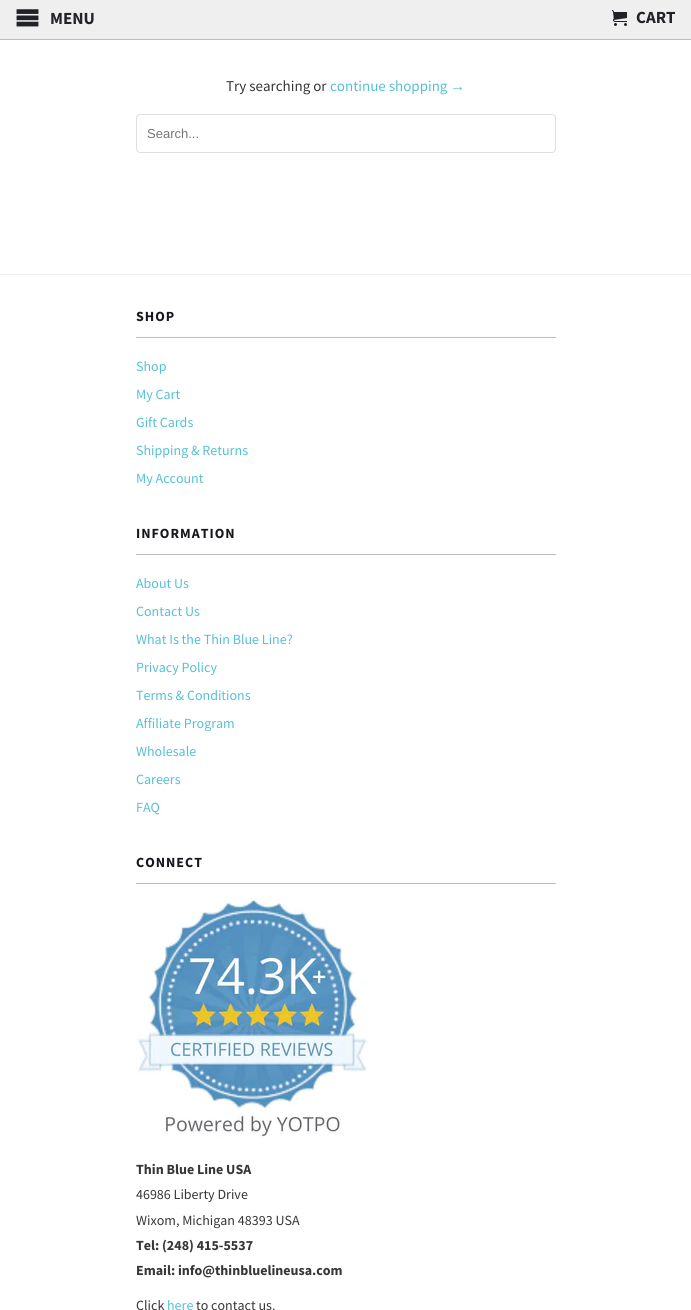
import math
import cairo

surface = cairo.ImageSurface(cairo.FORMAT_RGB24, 691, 1310)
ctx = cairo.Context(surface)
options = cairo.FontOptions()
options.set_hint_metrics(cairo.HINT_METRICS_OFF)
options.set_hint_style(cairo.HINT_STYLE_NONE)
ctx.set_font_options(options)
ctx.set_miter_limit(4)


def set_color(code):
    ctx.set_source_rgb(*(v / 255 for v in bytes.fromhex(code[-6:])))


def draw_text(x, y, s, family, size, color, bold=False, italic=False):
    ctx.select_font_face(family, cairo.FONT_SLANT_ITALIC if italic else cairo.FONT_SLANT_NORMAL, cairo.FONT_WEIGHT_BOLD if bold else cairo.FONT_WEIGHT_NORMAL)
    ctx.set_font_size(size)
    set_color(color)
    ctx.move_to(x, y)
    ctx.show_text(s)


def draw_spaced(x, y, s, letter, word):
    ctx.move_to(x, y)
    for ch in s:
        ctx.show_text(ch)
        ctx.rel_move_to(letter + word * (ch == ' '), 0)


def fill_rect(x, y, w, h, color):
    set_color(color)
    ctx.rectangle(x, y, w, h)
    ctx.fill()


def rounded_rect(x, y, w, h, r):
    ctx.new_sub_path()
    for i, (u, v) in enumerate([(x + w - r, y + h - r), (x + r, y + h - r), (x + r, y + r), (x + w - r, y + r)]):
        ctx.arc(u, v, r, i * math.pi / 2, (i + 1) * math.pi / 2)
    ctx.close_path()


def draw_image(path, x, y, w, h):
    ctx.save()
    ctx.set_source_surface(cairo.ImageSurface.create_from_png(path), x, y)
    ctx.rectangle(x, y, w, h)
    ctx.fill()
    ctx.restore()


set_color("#ffffff")
ctx.paint()
fill_rect(0, 0, 691, 39, "#efefef")
fill_rect(0, 39, 691, 1, "#bebebe")
draw_image("assets/img1.png", 16, 9, 23, 18)
draw_text(50, 24, "MENU", "Source Sans Pro", 17, "#222228", bold=True)
draw_image("assets/img2.png", 612, 10, 15, 16)
draw_text(636, 23, "CART", "Source Sans Pro", 17, "#222228", bold=True)
draw_text(226, 91, "Try searching or", "Source Sans Pro", 15, "#363636")
draw_text(330, 91, "continue shopping", "Source Sans Pro", 15, "#55c0d4")
draw_text(450, 91, "→", "Liberation Serif", 15, "#55c0d4")
rounded_rect(136.5, 114.5, 419, 38, 3.5)
set_color("#dce0e0")
ctx.set_line_width(1)
ctx.stroke()
draw_text(147, 138, "Search...", "Liberation Sans", 13, "#757575")
fill_rect(0, 274, 691, 1, "#f1f1f1")
fill_rect(136, 337, 420, 1, "#bbbbbb")
ctx.select_font_face("Source Sans Pro", cairo.FONT_SLANT_NORMAL, cairo.FONT_WEIGHT_BOLD)
ctx.set_font_size(14)
set_color("#16161d")
draw_spaced(136, 321, "SHOP", 1, 0)
draw_text(136, 371, "Shop", "Source Sans Pro", 14, "#55c0d4")
draw_text(136, 399, "My Cart", "Source Sans Pro", 14, "#55c0d4")
draw_text(136, 427, "Gift Cards", "Source Sans Pro", 14, "#55c0d4")
draw_text(136, 455, "Shipping & Returns", "Source Sans Pro", 14, "#55c0d4")
draw_text(136, 483, "My Account", "Source Sans Pro", 14, "#55c0d4")
fill_rect(136, 554, 420, 1, "#bbbbbb")
ctx.select_font_face("Source Sans Pro", cairo.FONT_SLANT_NORMAL, cairo.FONT_WEIGHT_BOLD)
set_color("#16161d")
draw_spaced(136, 538, "INFORMATION", 1, 0)
draw_text(136, 588, "About Us", "Source Sans Pro", 14, "#55c0d4")
draw_text(136, 616, "Contact Us", "Source Sans Pro", 14, "#55c0d4")
draw_text(136, 644, "What Is the Thin Blue Line?", "Source Sans Pro", 14, "#55c0d4")
draw_text(136, 672, "Privacy Policy", "Source Sans Pro", 14, "#55c0d4")
draw_text(136, 700, "Terms & Conditions", "Source Sans Pro", 14, "#55c0d4")
draw_text(136, 728, "Affiliate Program", "Source Sans Pro", 14, "#55c0d4")
draw_text(136, 756, "Wholesale", "Source Sans Pro", 14, "#55c0d4")
draw_text(136, 784, "Careers", "Source Sans Pro", 14, "#55c0d4")
draw_text(136, 812, "FAQ", "Source Sans Pro", 14, "#55c0d4")
fill_rect(136, 883, 420, 1, "#bbbbbb")
ctx.select_font_face("Source Sans Pro", cairo.FONT_SLANT_NORMAL, cairo.FONT_WEIGHT_BOLD)
set_color("#16161d")
draw_spaced(136, 867, "CONNECT", 1, 0)
draw_image("assets/img3.png", 136, 898, 232, 240)
draw_text(136, 1174, "Thin Blue Line USA", "Source Sans Pro", 14, "#363636", bold=True)
draw_text(136, 1199, "46986 Liberty Drive", "Source Sans Pro", 14, "#363636")
draw_text(136, 1225, "Wixom, Michigan 48393 USA", "Source Sans Pro", 14, "#363636")
draw_text(136, 1250, "Tel: (248) 415-5537", "Source Sans Pro", 14, "#363636", bold=True)
draw_text(136, 1275, "Email: info@thinbluelineusa.com", "Source Sans Pro", 14, "#363636", bold=True)
draw_text(136, 1310, "Click", "Source Sans Pro", 14, "#363636")
draw_text(167, 1310, "here", "Source Sans Pro", 14, "#55c0d4")
draw_text(196, 1310, "to contact us.", "Source Sans Pro", 14, "#363636")
surface.write_to_png("output.png")
